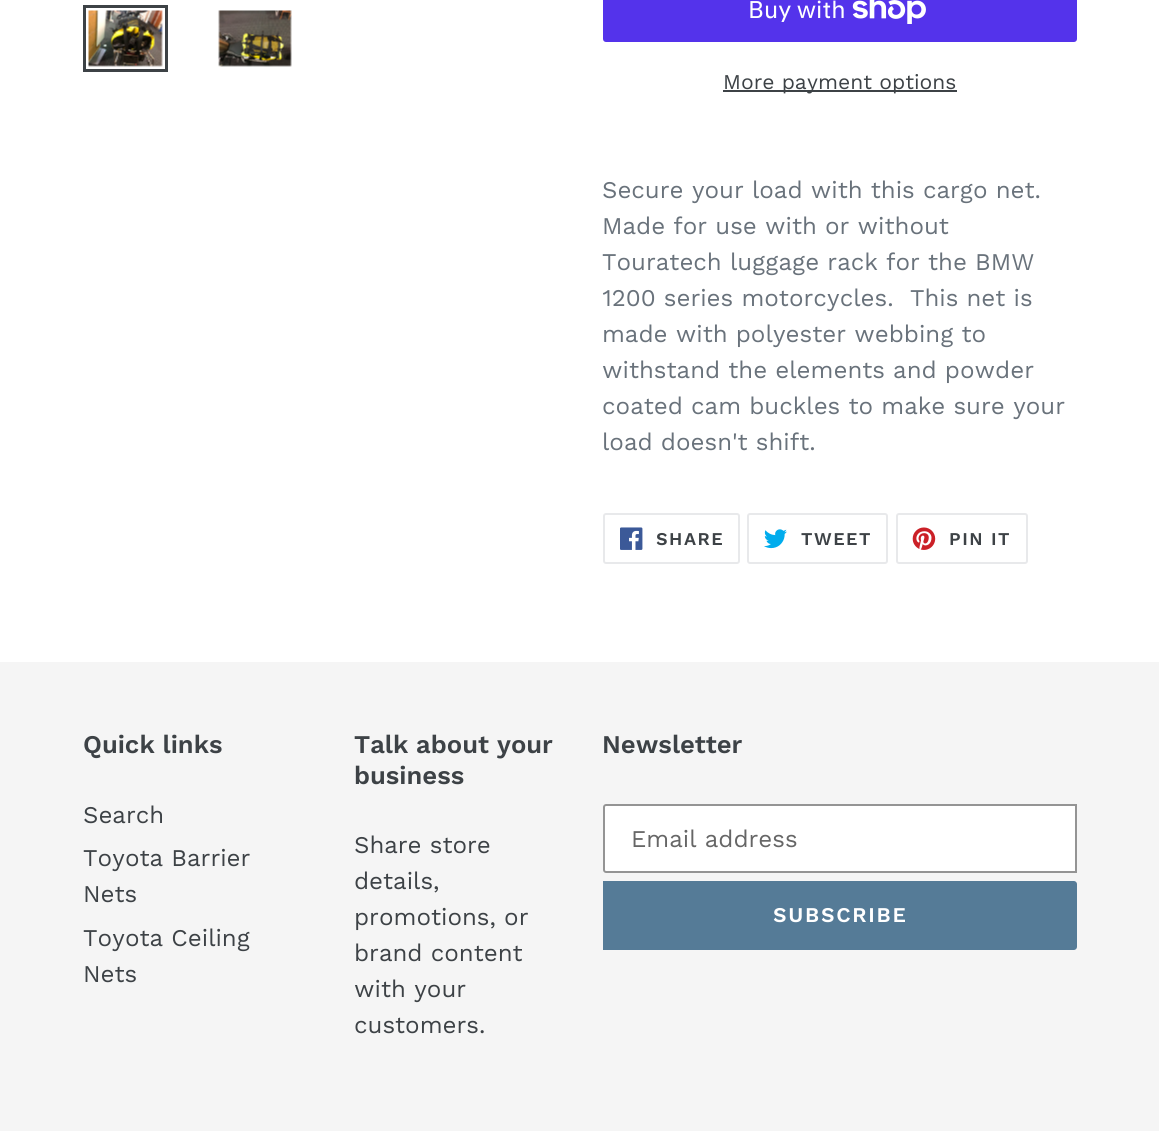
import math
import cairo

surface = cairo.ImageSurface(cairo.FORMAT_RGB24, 1159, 1131)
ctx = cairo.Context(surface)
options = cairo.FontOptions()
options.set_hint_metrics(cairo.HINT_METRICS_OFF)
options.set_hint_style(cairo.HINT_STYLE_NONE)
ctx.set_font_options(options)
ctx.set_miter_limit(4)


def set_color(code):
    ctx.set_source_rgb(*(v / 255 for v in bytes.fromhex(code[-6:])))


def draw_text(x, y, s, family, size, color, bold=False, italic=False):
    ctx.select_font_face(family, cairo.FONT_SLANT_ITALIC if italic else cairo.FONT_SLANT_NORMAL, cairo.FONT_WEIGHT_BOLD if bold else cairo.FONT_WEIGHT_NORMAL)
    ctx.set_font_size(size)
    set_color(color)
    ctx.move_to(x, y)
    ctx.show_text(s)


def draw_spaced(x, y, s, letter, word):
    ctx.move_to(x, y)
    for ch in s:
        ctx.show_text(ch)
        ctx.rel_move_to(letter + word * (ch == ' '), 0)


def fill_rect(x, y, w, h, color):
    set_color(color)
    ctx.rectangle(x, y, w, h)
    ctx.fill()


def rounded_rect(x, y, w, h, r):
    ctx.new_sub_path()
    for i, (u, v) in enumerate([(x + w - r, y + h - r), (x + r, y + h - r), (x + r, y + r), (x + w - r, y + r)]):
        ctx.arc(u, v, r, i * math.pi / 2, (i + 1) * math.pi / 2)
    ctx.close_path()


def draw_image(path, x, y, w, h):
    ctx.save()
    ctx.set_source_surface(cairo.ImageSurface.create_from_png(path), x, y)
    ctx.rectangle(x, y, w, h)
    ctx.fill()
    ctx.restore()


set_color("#ffffff")
ctx.paint()
ctx.rectangle(84.5, 6.5, 82, 64)
set_color("#3d4246")
ctx.set_line_width(3)
ctx.stroke()
draw_image("assets/img1.png", 88, 10, 75, 57)
draw_image("assets/img2.png", 218, 10, 74, 57)
set_color("#5433eb")
rounded_rect(603, -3, 474, 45, 3)
ctx.fill()
draw_text(748, 18, "Buy with", "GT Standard", 24, "#ffffff")
draw_image("assets/img3.png", 852, 0, 74, 24)
fill_rect(723, 90, 234, 2, "#3d4246")
draw_text(723, 89, "More payment options", "Work Sans", 21, "#3d4246")
draw_text(602, 198, "Secure your load with this cargo net.", "Work Sans", 24, "#69727b")
draw_text(602, 234, "Made for use with or without", "Work Sans", 24, "#69727b")
draw_text(602, 270, "Touratech luggage rack for the BMW", "Work Sans", 24, "#69727b")
draw_text(602, 306, "1200 series motorcycles.  This net is", "Work Sans", 24, "#69727b")
draw_text(602, 342, "made with polyester webbing to", "Work Sans", 24, "#69727b")
draw_text(602, 378, "withstand the elements and powder", "Work Sans", 24, "#69727b")
draw_text(602, 414, "coated cam buckles to make sure your", "Work Sans", 24, "#69727b")
draw_text(602, 450, "load doesn't shift.", "Work Sans", 24, "#69727b")
rounded_rect(604, 514, 135, 49, 2)
set_color("#e8e9eb")
ctx.set_line_width(2)
ctx.stroke()
draw_image("assets/img4.png", 620, 527, 23, 23)
ctx.select_font_face("Work Sans SemiBold")
ctx.set_font_size(18)
set_color("#3d4246")
draw_spaced(656, 545, "SHARE", 1.5, 0)
rounded_rect(748, 514, 139, 49, 2)
set_color("#e8e9eb")
ctx.stroke()
draw_image("assets/img5.png", 764, 529, 23, 20)
set_color("#3d4246")
draw_spaced(801, 545, "TWEET", 1.5, 0)
rounded_rect(897, 514, 130, 49, 2)
set_color("#e8e9eb")
ctx.stroke()
draw_image("assets/img6.png", 912, 527, 24, 23)
set_color("#3d4246")
draw_spaced(949, 545, "PIN IT", 1.5, 0)
fill_rect(0, 662, 1159, 469, "#f5f5f5")
draw_text(83, 753, "Quick links", "Work Sans SemiBold", 25.5, "#3d4246")
draw_text(83, 823, "Search", "Work Sans", 24, "#3d4246")
draw_text(83, 866, "Toyota Barrier", "Work Sans", 24, "#3d4246")
draw_text(83, 902, "Nets", "Work Sans", 24, "#3d4246")
draw_text(83, 946, "Toyota Ceiling", "Work Sans", 24, "#3d4246")
draw_text(83, 982, "Nets", "Work Sans", 24, "#3d4246")
draw_text(354, 753, "Talk about your", "Work Sans SemiBold", 25.5, "#3d4246")
draw_text(354, 784, "business", "Work Sans SemiBold", 25.5, "#3d4246")
draw_text(354, 853, "Share store", "Work Sans", 24, "#3d4246")
draw_text(354, 889, "details,", "Work Sans", 24, "#3d4246")
draw_text(354, 925, "promotions, or", "Work Sans", 24, "#3d4246")
draw_text(354, 961, "brand content", "Work Sans", 24, "#3d4246")
draw_text(354, 997, "with your", "Work Sans", 24, "#3d4246")
draw_text(354, 1033, "customers.", "Work Sans", 24, "#3d4246")
draw_text(602, 753, "Newsletter", "Work Sans SemiBold", 25.5, "#3d4246")
set_color("#ffffff")
ctx.new_path()
ctx.move_to(606, 805)
ctx.line_to(1076, 805)
ctx.line_to(1076, 872)
ctx.line_to(606, 872)
ctx.curve_to(605, 872, 604, 871, 604, 870)
ctx.line_to(604, 807)
ctx.curve_to(604, 806, 605, 805, 606, 805)
ctx.close_path()
ctx.fill_preserve()
set_color("#949494")
ctx.stroke()
draw_text(631, 847, "Email address", "Work Sans", 24, "#666666")
set_color("#557b97")
ctx.new_path()
ctx.move_to(603, 881)
ctx.line_to(1074, 881)
ctx.curve_to(1075.5, 881, 1077, 882.5, 1077, 884)
ctx.line_to(1077, 947)
ctx.curve_to(1077, 948.5, 1075.5, 950, 1074, 950)
ctx.line_to(603, 950)
ctx.close_path()
ctx.fill()
ctx.select_font_face("Work Sans SemiBold")
ctx.set_font_size(21)
set_color("#ffffff")
draw_spaced(773, 922, "SUBSCRIBE", 1.75, 0)
surface.write_to_png("output.png")
